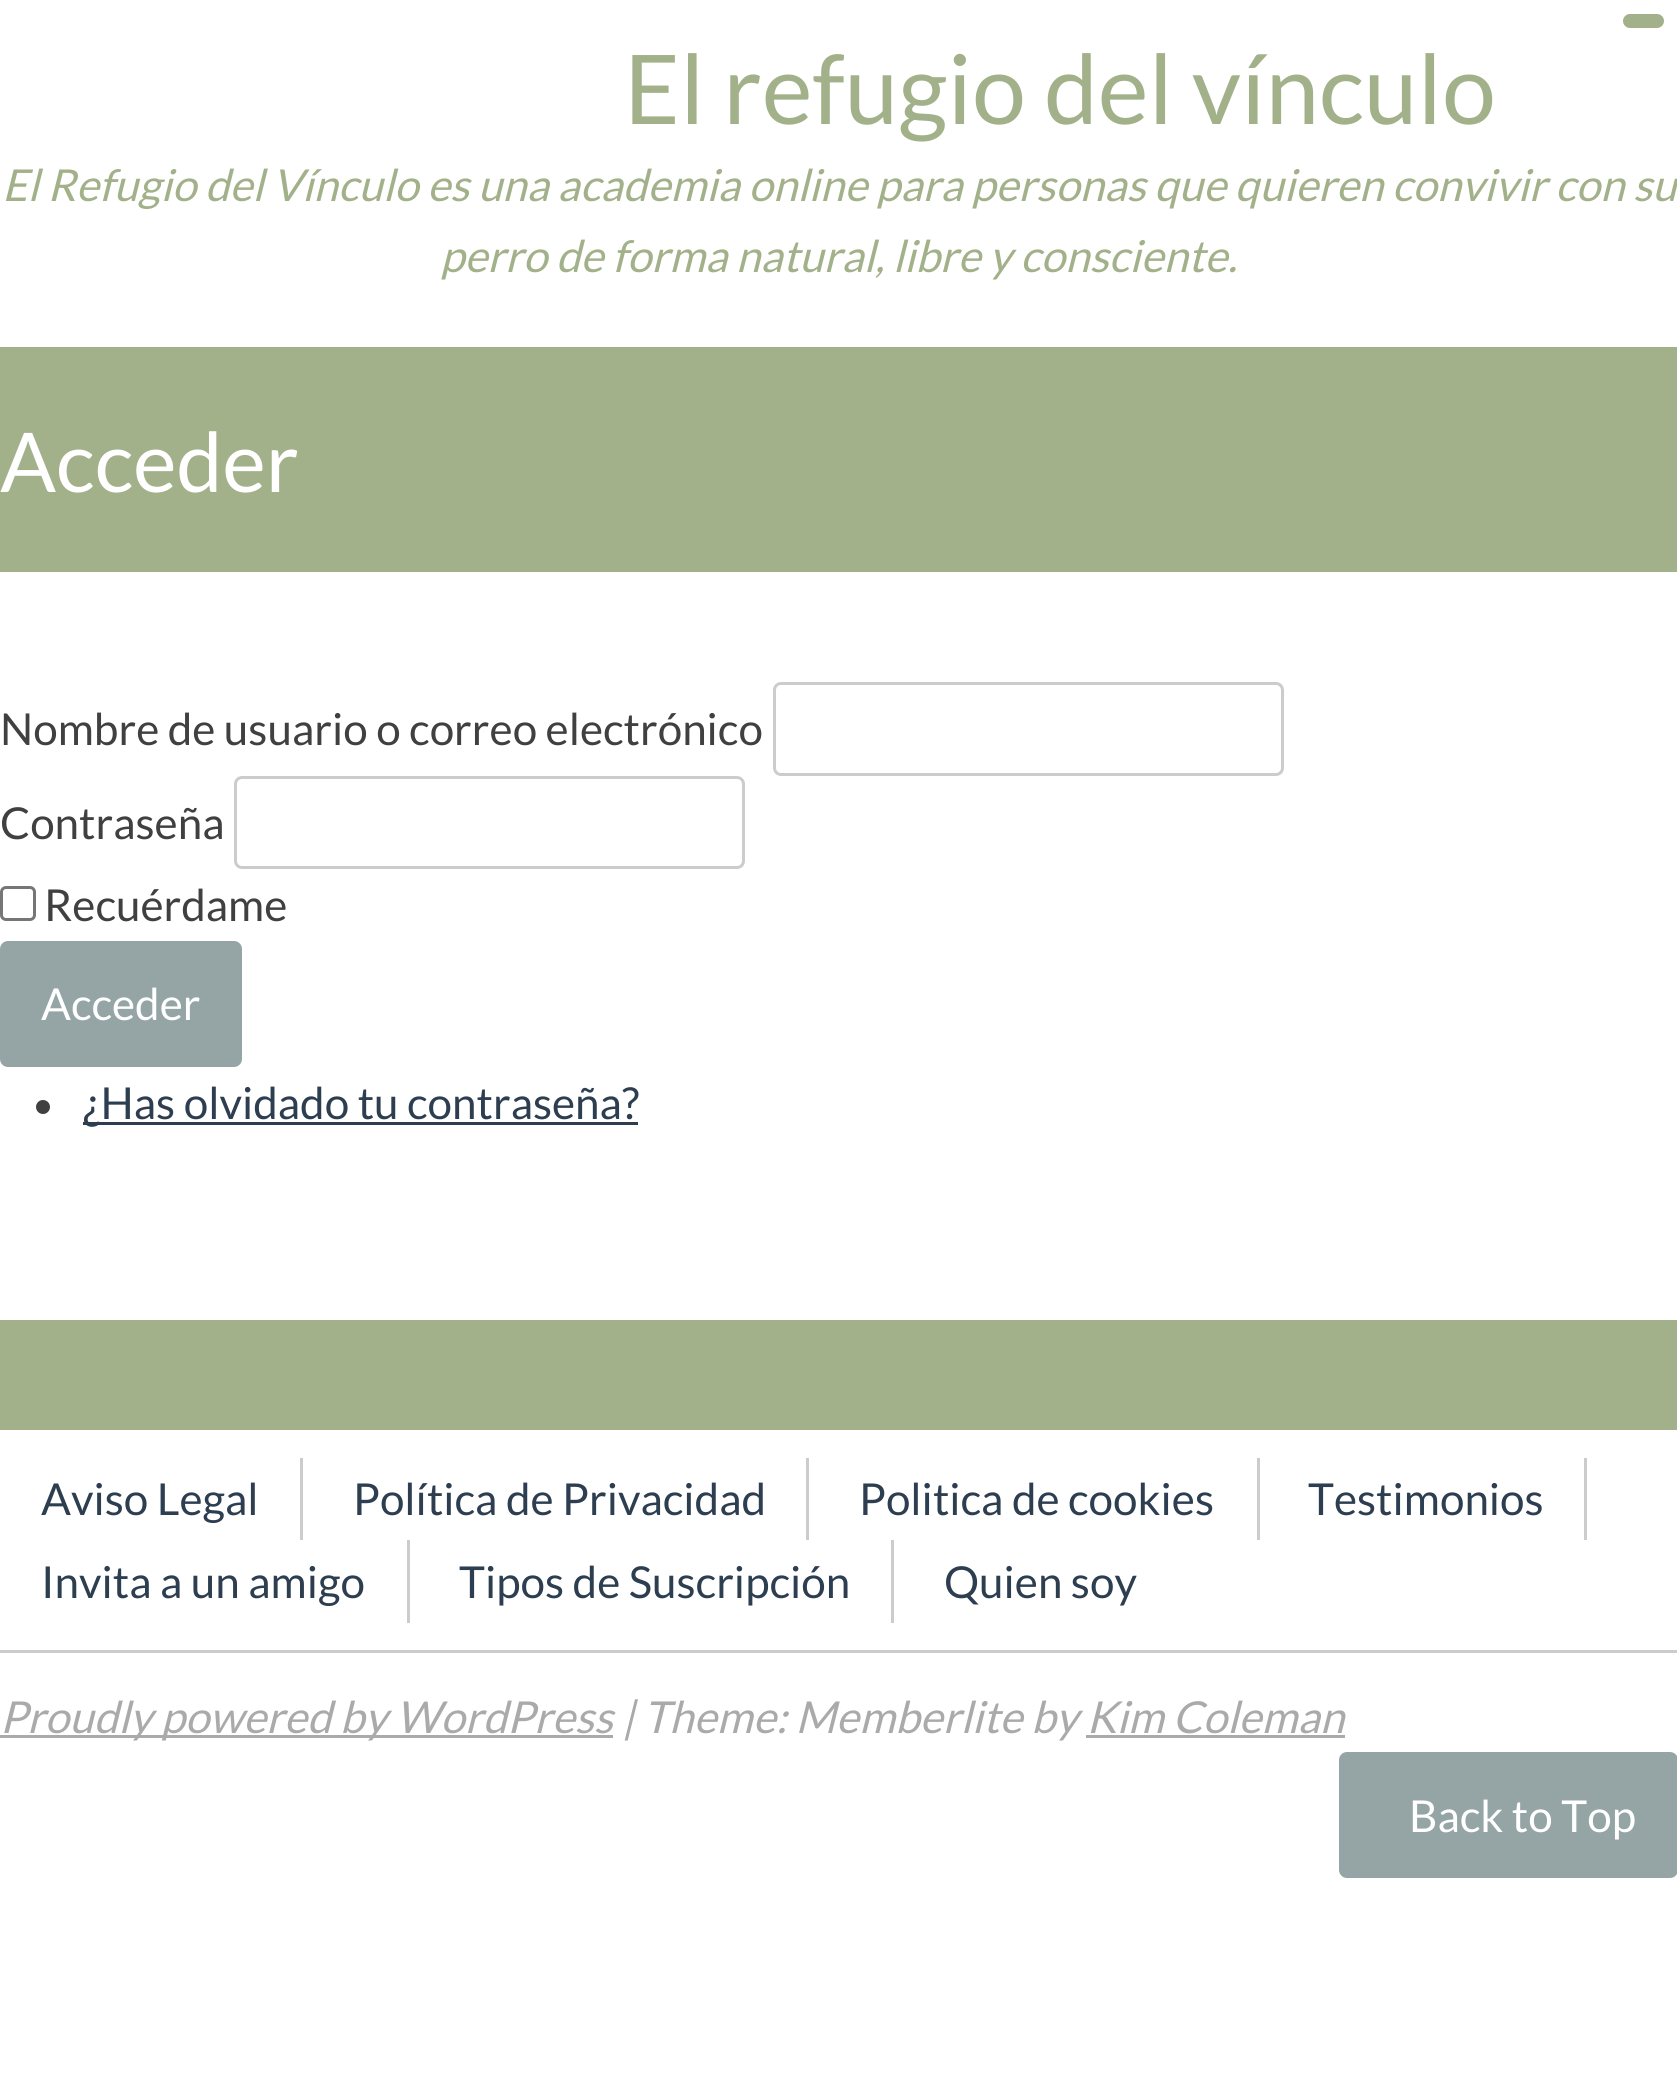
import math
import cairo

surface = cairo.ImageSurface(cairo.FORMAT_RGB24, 1677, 2079)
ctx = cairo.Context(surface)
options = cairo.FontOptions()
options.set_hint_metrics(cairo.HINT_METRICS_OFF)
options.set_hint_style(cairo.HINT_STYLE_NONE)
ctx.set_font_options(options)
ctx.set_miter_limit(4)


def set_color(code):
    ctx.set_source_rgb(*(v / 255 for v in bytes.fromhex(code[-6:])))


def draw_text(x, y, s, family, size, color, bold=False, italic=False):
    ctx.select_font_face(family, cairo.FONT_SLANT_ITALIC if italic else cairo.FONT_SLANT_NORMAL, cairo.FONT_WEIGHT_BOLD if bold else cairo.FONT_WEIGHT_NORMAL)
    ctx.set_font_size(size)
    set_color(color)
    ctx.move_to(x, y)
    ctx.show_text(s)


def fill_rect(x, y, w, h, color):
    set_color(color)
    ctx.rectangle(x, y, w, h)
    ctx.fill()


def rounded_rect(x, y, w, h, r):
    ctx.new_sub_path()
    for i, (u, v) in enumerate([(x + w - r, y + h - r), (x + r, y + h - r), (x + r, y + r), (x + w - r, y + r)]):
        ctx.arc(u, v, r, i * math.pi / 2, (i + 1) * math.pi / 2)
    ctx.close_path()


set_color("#ffffff")
ctx.paint()
set_color("#a3b18a")
rounded_rect(1623, 14, 41, 14, 7)
ctx.fill()
draw_text(624, 124, "El refugio del vínculo", "Lato", 96.25, "#a3b18a")
draw_text(2, 201, "El Refugio del Vínculo es una academia online para personas que quieren convivir con su", "Lato", 44, "#a3b18a", italic=True)
draw_text(440, 272, "perro de forma natural, libre y consciente.", "Lato", 44, "#a3b18a", italic=True)
fill_rect(0, 347, 1677, 225, "#a3b18a")
draw_text(0, 492, "Acceder", "Lato", 82.5, "#ffffff")
draw_text(0, 745, "Nombre de usuario o correo electrónico", "Lato", 44, "#404040")
rounded_rect(774.5, 683.5, 508, 91, 6.5)
set_color("#cccccc")
ctx.set_line_width(3)
ctx.stroke()
draw_text(0, 839, "Contraseña", "Lato", 44, "#404040")
rounded_rect(235.5, 777.5, 508, 90, 6.5)
set_color("#cccccc")
ctx.stroke()
rounded_rect(1.5, 887.5, 33, 32, 4.5)
set_color("#767676")
ctx.stroke()
draw_text(44, 921, "Recuérdame", "Lato", 44, "#404040")
set_color("#95a5a6")
rounded_rect(0, 941, 242, 126, 8)
ctx.fill()
draw_text(41, 1020, "Acceder", "Lato", 44, "#ffffff")
set_color("#404040")
ctx.new_path()
ctx.arc(43, 1107, 7, 0, 2 * math.pi)
ctx.fill()
fill_rect(83, 1122, 555, 3, "#2c3e50")
draw_text(83, 1119, "¿Has olvidado tu contraseña?", "Lato", 44, "#2c3e50")
fill_rect(0, 1320, 1677, 110, "#a3b18a")
fill_rect(0, 1650, 1677, 3, "#cccccc")
fill_rect(300, 1458, 3, 82, "#cccccc")
draw_text(41, 1515, "Aviso Legal", "Lato", 44, "#2c3e50")
fill_rect(806, 1458, 3, 82, "#cccccc")
draw_text(353, 1515, "Política de Privacidad", "Lato", 44, "#2c3e50")
fill_rect(1257, 1458, 3, 82, "#cccccc")
draw_text(859, 1515, "Politica de cookies", "Lato", 44, "#2c3e50")
fill_rect(1584, 1458, 3, 82, "#cccccc")
draw_text(1308, 1515, "Testimonios", "Lato", 44, "#2c3e50")
fill_rect(407, 1540, 3, 83, "#cccccc")
draw_text(41, 1598, "Invita a un amigo", "Lato", 44, "#2c3e50")
fill_rect(891, 1540, 3, 83, "#cccccc")
draw_text(459, 1598, "Tipos de Suscripción", "Lato", 44, "#2c3e50")
draw_text(944, 1598, "Quien soy", "Lato", 44, "#2c3e50")
fill_rect(0, 1735, 613, 3, "#aaaaaa")
draw_text(0, 1733, "Proudly powered by WordPress | Theme: Memberlite by Kim Coleman", "Lato", 44, "#aaaaaa", italic=True)
fill_rect(1086, 1735, 259, 3, "#aaaaaa")
set_color("#95a5a6")
rounded_rect(1339, 1752, 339, 126, 8)
ctx.fill()
draw_text(1409, 1832, "Back to Top", "Lato", 44, "#ffffff")
surface.write_to_png("output.png")
